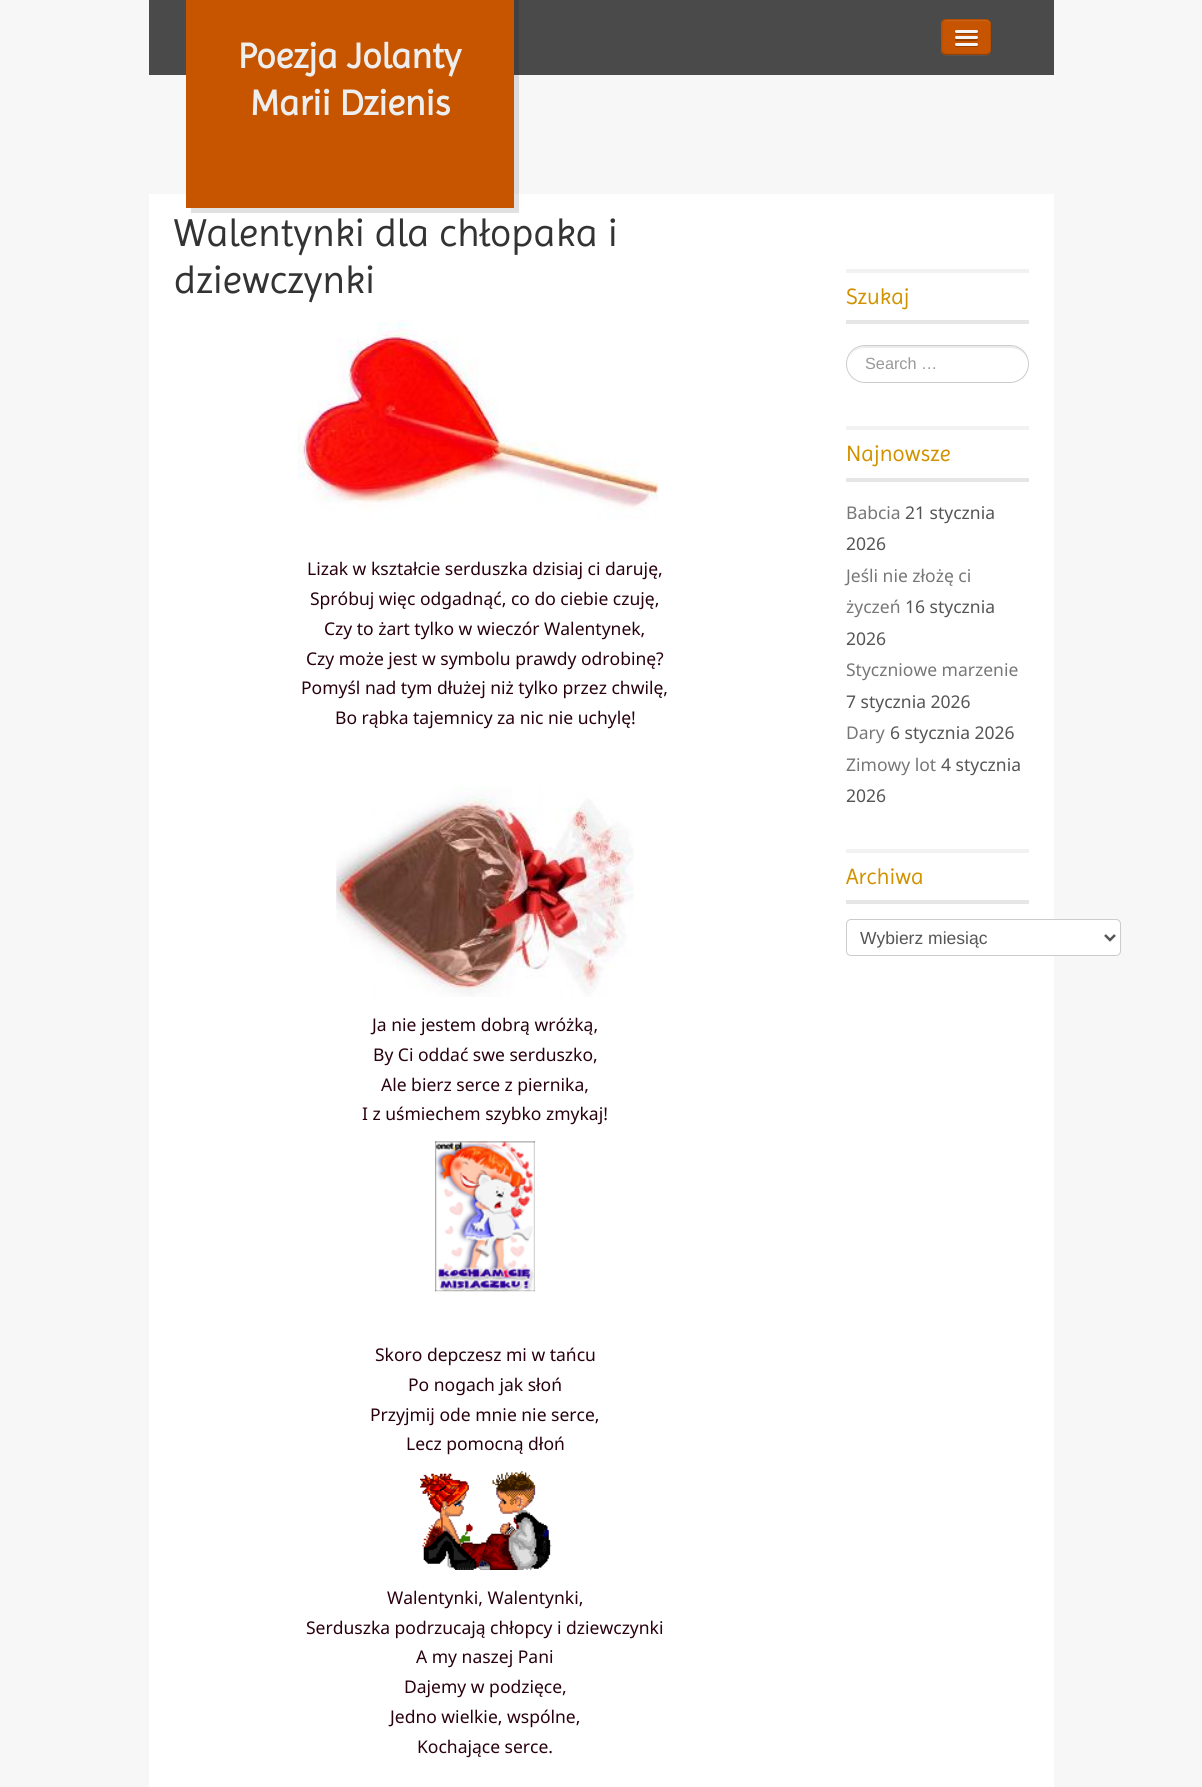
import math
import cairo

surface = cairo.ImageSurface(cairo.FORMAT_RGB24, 1202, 1787)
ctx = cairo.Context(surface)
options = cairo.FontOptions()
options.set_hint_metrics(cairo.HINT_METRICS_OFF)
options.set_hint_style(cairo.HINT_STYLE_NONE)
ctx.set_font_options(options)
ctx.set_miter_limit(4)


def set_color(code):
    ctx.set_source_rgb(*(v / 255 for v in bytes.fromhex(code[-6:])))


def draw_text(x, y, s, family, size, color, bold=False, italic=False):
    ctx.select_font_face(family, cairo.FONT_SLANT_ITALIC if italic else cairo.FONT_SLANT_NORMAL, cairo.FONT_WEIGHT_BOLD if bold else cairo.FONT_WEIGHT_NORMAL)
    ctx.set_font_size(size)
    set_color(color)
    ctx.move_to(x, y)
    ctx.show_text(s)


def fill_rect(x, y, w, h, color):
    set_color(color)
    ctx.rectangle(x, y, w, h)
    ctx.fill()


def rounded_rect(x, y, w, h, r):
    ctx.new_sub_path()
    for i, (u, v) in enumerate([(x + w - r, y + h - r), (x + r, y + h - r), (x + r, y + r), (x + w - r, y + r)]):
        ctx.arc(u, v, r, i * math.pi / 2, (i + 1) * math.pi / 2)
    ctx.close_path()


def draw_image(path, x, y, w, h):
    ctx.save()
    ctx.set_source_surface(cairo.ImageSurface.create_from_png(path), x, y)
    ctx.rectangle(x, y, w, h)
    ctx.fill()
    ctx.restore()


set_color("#f7f7f7")
ctx.paint()
fill_rect(149, 0, 905, 75, "#4a4a4a")
set_color("#585858")
ctx.new_path()
ctx.move_to(941, 23)
ctx.line_to(941, 42)
ctx.curve_to(941, 55, 940, 56, 953, 56)
ctx.line_to(979, 56)
ctx.curve_to(982, 56, 988, 57, 990, 54)
ctx.line_to(991, 52)
ctx.curve_to(989, 56, 983, 55, 980, 55)
ctx.line_to(953, 55)
ctx.curve_to(943, 55, 941, 56, 941, 46)
ctx.close_path()
ctx.fill()
set_color("#c75400")
rounded_rect(941, 19, 50, 36, 5)
ctx.fill()
set_color("#cd651a")
ctx.new_path()
ctx.move_to(946, 21)
ctx.line_to(986, 21)
ctx.curve_to(988, 21, 990, 23, 990, 25)
ctx.line_to(990, 24)
ctx.curve_to(990, 22, 988, 20, 986, 20)
ctx.line_to(947, 20)
ctx.curve_to(946, 20, 944, 21, 944, 22)
ctx.close_path()
ctx.fill()
ctx.new_path()
ctx.move_to(989.5, 53)
ctx.curve_to(988.5, 54, 987.5, 54.5, 986, 54.5)
ctx.line_to(946, 54.5)
ctx.curve_to(945, 54.5, 944, 54, 943, 53)
ctx.set_source_rgba(0, 0, 0, 0.25)
ctx.set_line_width(1.2)
ctx.stroke()
ctx.new_path()
ctx.move_to(943, 53)
ctx.curve_to(940.5, 50.5, 942, 40, 942, 37)
ctx.line_to(942, 28)
ctx.curve_to(942, 25, 941, 20.5, 945.5, 19.5)
ctx.line_to(987, 19.5)
ctx.curve_to(991.5, 20.5, 990.5, 25, 990.5, 28)
ctx.line_to(990.5, 37)
ctx.curve_to(990.5, 40, 992, 50.5, 989.5, 53)
ctx.set_source_rgba(0, 0, 0, 0.1)
ctx.stroke()
set_color("#953f00")
ctx.new_path()
ctx.move_to(955, 32)
ctx.curve_to(954, 34.5, 959, 34, 960, 34)
ctx.line_to(973, 34)
ctx.curve_to(974, 34, 977.5, 35, 978, 33)
ctx.curve_to(978, 32.5, 978, 31.5, 977.5, 31.5)
ctx.curve_to(977.5, 32, 977, 32.5, 976, 32.5)
ctx.line_to(956, 32.5)
ctx.curve_to(956, 32.5, 955.5, 32, 955, 32)
ctx.close_path()
ctx.fill()
set_color("#f5f5f5")
rounded_rect(955, 30, 23, 3, 1.5)
ctx.fill()
set_color("#953f00")
ctx.new_path()
ctx.move_to(955.5, 38.5)
ctx.line_to(955, 40)
ctx.curve_to(955.5, 42, 959, 41, 960, 41)
ctx.line_to(963, 41)
ctx.curve_to(965, 41, 976.5, 41.5, 977.5, 40.5)
ctx.curve_to(978, 40, 978, 39, 977.5, 38)
ctx.line_to(976.5, 38.5)
ctx.curve_to(974.5, 39, 956, 39, 955.5, 38.5)
ctx.close_path()
ctx.fill()
set_color("#f5f5f5")
rounded_rect(955, 36, 23, 3, 1.5)
ctx.fill()
set_color("#953f00")
ctx.new_path()
ctx.move_to(955.5, 44.5)
ctx.line_to(955, 46)
ctx.curve_to(955.5, 48, 959, 47, 960, 47)
ctx.line_to(973, 47)
ctx.curve_to(974.5, 47, 978, 48, 978, 45.5)
ctx.line_to(977.5, 44.5)
ctx.line_to(976.5, 45)
ctx.curve_to(974.5, 45.5, 956, 45.5, 955.5, 44.5)
ctx.close_path()
ctx.fill()
set_color("#f5f5f5")
rounded_rect(955, 43, 23, 3, 1.5)
ctx.fill()
fill_rect(149, 194, 905, 1593, "#ffffff")
ctx.set_source_rgba(0, 0, 0, 0.12)
ctx.new_path()
ctx.move_to(191, 208)
ctx.line_to(191, 213)
ctx.line_to(519, 213)
ctx.line_to(519, -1)
ctx.line_to(514, -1)
ctx.line_to(514, 208)
ctx.close_path()
ctx.fill()
fill_rect(186, 0, 328, 208, "#c75500")
draw_text(238, 68, "Poezja Jolanty", "Imprima", 36, "#eeeeee", bold=True)
draw_text(250, 115, "Marii Dzienis", "Imprima", 36, "#eeeeee", bold=True)
draw_text(174, 246, "Walentynki dla chłopaka i", "Imprima", 39.4, "#333333")
draw_text(174, 293, "dziewczynki", "Imprima", 39.4, "#333333")
draw_image("assets/img1.png", 297, 320, 362, 199)
draw_text(307, 575, "Lizak w kształcie serduszka dzisiaj ci daruję,", "Noto Sans", 17.5, "#28000f")
draw_text(310, 605, "Spróbuj więc odgadnąć, co do ciebie czuję,", "Noto Sans", 17.5, "#28000f")
draw_text(324, 635, "Czy to żart tylko w wieczór Walentynek,", "Noto Sans", 17.5, "#28000f")
draw_text(306, 665, "Czy może jest w symbolu prawdy odrobinę?", "Noto Sans", 17.5, "#28000f")
draw_text(301, 694, "Pomyśl nad tym dłużej niż tylko przez chwilę,", "Noto Sans", 17.5, "#28000f")
draw_text(335, 724, "Bo rąbka tajemnicy za nic nie uchylę!", "Noto Sans", 17.5, "#28000f")
draw_image("assets/img2.png", 336, 787, 298, 210)
draw_text(372, 1031, "Ja nie jestem dobrą wróżką,", "Noto Sans", 17.5, "#28000f")
draw_text(373, 1061, "By Ci oddać swe serduszko,", "Noto Sans", 17.5, "#28000f")
draw_text(381, 1091, "Ale bierz serce z piernika,", "Noto Sans", 17.5, "#28000f")
draw_text(362, 1120, "I z uśmiechem szybko zmykaj!", "Noto Sans", 17.5, "#28000f")
draw_image("assets/img3.png", 435, 1141, 100, 151)
draw_text(375, 1361, "Skoro depczesz mi w tańcu", "Noto Sans", 17.5, "#28000f")
draw_text(408, 1391, "Po nogach jak słoń", "Noto Sans", 17.5, "#28000f")
draw_text(370, 1421, "Przyjmij ode mnie nie serce,", "Noto Sans", 17.5, "#28000f")
draw_text(406, 1450, "Lecz pomocną dłoń", "Noto Sans", 17.5, "#28000f")
draw_image("assets/img4.png", 420, 1471, 132, 99)
draw_text(387, 1604, "Walentynki, Walentynki,", "Noto Sans", 17.5, "#28000f")
draw_text(306, 1634, "Serduszka podrzucają chłopcy i dziewczynki", "Noto Sans", 17.5, "#28000f")
draw_text(416, 1663, "A my naszej Pani", "Noto Sans", 17.5, "#28000f")
draw_text(404, 1693, "Dajemy w podzięce,", "Noto Sans", 17.5, "#28000f")
draw_text(390, 1723, "Jedno wielkie, wspólne,", "Noto Sans", 17.5, "#28000f")
draw_text(417, 1753, "Kochające serce.", "Noto Sans", 17.5, "#28000f")
fill_rect(846, 269, 183, 4, "#f1f2f1")
fill_rect(846, 320, 183, 4, "#e5e6e5")
draw_text(846, 304, "Szukaj", "Imprima", 22.5, "#d19200")
set_color("#ececec")
ctx.new_path()
ctx.move_to(865, 348)
ctx.line_to(1010, 348)
ctx.curve_to(1020, 348, 1028, 355, 1028, 364)
ctx.curve_to(1028, 354, 1020, 346, 1010, 346)
ctx.line_to(866, 346)
ctx.curve_to(856, 346, 848, 354, 848, 364)
ctx.curve_to(848, 355, 855, 348, 865, 348)
ctx.close_path()
ctx.fill()
rounded_rect(846.5, 345.5, 182, 37, 18.5)
set_color("#cccccc")
ctx.set_line_width(1)
ctx.stroke()
draw_text(865, 369, "Search …", "Liberation Sans", 16.25, "#999999")
fill_rect(846, 426, 183, 4, "#f1f2f1")
fill_rect(846, 478, 183, 4, "#e5e6e5")
draw_text(846, 461, "Najnowsze", "Imprima", 22.5, "#d19200")
draw_text(846, 519, "Babcia", "Noto Sans", 17.5, "#777777")
draw_text(905, 519, "21 stycznia", "Noto Sans", 17.5, "#555555")
draw_text(846, 550, "2026", "Noto Sans", 17.5, "#555555")
draw_text(846, 582, "Jeśli nie złożę ci", "Noto Sans", 17.5, "#777777")
draw_text(846, 613, "życzeń", "Noto Sans", 17.5, "#777777")
draw_text(905, 613, "16 stycznia", "Noto Sans", 17.5, "#555555")
draw_text(846, 645, "2026", "Noto Sans", 17.5, "#555555")
draw_text(846, 676, "Styczniowe marzenie", "Noto Sans", 17.5, "#777777")
draw_text(846, 708, "7 stycznia 2026", "Noto Sans", 17.5, "#555555")
draw_text(846, 739, "Dary", "Noto Sans", 17.5, "#777777")
draw_text(890, 739, "6 stycznia 2026", "Noto Sans", 17.5, "#555555")
draw_text(846, 771, "Zimowy lot", "Noto Sans", 17.5, "#777777")
draw_text(941, 771, "4 stycznia", "Noto Sans", 17.5, "#555555")
draw_text(846, 802, "2026", "Noto Sans", 17.5, "#555555")
fill_rect(846, 849, 183, 4, "#f1f2f1")
fill_rect(846, 900, 183, 4, "#e5e6e5")
draw_text(846, 884, "Archiwa", "Imprima", 22.5, "#d19200")
set_color("#ffffff")
rounded_rect(846.5, 919.5, 274, 36, 4.5)
ctx.fill_preserve()
set_color("#cccccc")
ctx.stroke()
ctx.new_path()
ctx.move_to(1105, 935)
ctx.line_to(1110, 940)
ctx.line_to(1115, 935)
set_color("#555555")
ctx.set_line_width(2.5)
ctx.stroke()
draw_text(860, 944, "Wybierz miesiąc", "Liberation Sans", 17.5, "#555555")
surface.write_to_png("output.png")
